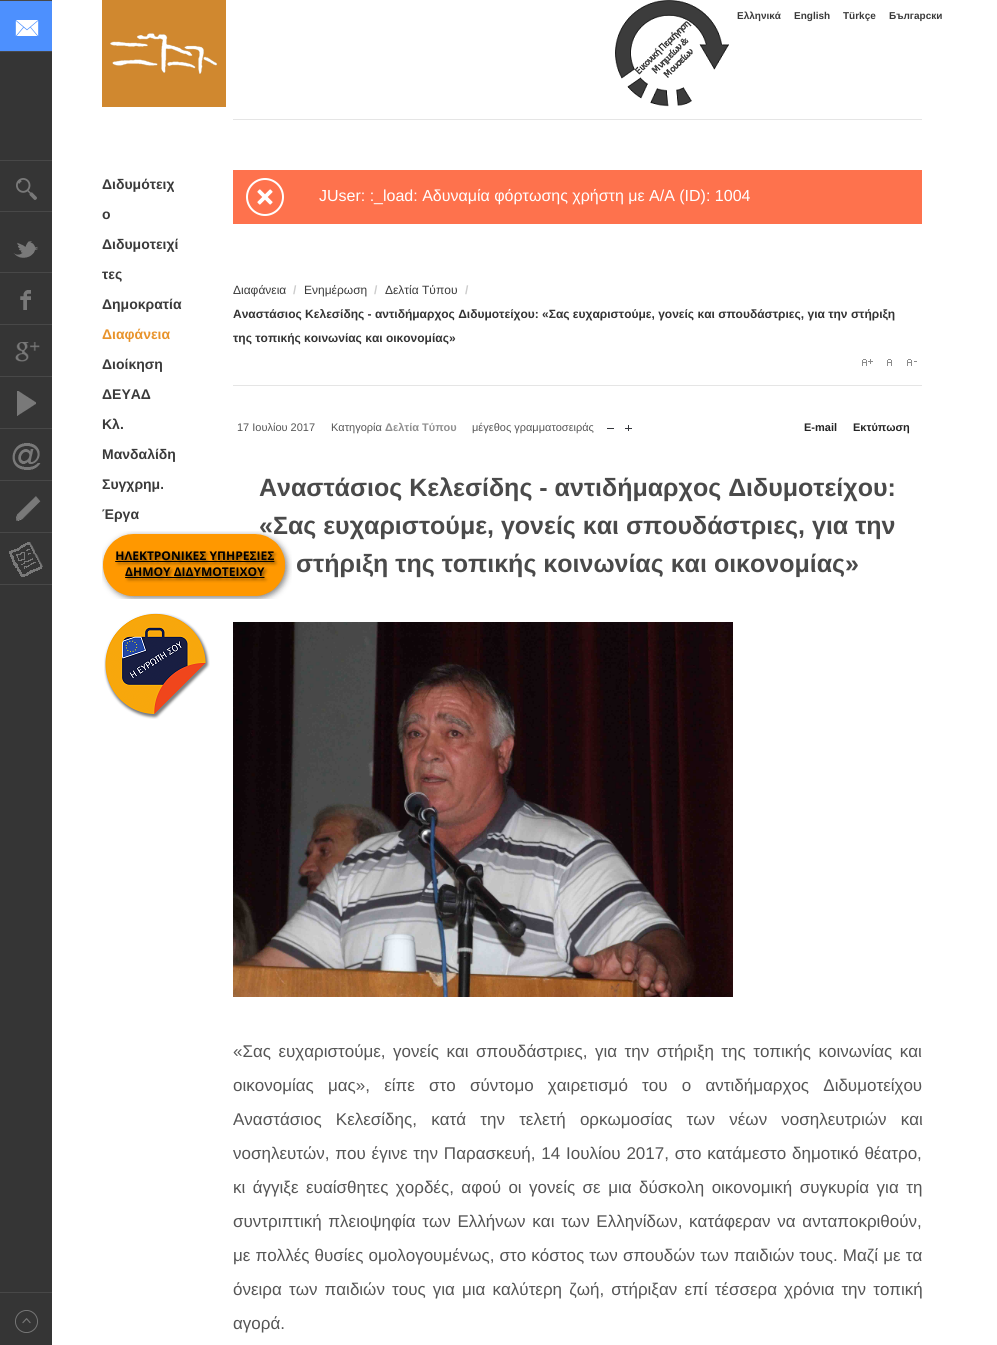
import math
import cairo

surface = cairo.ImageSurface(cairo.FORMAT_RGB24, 997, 1345)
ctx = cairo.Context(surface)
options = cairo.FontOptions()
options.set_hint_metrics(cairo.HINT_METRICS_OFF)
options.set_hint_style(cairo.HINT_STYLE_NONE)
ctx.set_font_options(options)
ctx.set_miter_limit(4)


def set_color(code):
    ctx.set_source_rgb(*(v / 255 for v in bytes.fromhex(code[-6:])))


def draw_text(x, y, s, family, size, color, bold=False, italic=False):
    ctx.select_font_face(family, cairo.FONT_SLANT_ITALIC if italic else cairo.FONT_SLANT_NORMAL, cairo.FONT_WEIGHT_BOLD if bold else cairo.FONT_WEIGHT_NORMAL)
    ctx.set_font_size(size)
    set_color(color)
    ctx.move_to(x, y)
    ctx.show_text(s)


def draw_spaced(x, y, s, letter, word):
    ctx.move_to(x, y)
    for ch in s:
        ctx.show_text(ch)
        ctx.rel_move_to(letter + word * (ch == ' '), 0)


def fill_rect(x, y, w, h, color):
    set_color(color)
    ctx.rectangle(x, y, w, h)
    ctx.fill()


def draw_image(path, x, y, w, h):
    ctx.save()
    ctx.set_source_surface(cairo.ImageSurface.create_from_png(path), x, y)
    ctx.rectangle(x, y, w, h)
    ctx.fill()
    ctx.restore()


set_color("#353535")
ctx.paint()
fill_rect(52, 0, 945, 1345, "#ffffff")
draw_image("assets/img1.png", 0, 1, 52, 50)
fill_rect(0, 0, 52, 1, "#484848")
fill_rect(0, 51, 52, 1, "#484848")
draw_image("assets/img2.png", 16, 178, 21, 22)
fill_rect(0, 160, 52, 1, "#484848")
fill_rect(0, 211, 52, 1, "#484848")
draw_image("assets/img3.png", 13, 241, 25, 17)
fill_rect(0, 272, 52, 1, "#484848")
draw_image("assets/img4.png", 20, 290, 11, 20)
fill_rect(0, 324, 52, 1, "#484848")
draw_image("assets/img5.png", 15, 342, 25, 20)
fill_rect(0, 376, 52, 1, "#484848")
draw_image("assets/img6.png", 17, 391, 19, 25)
fill_rect(0, 428, 52, 1, "#484848")
draw_image("assets/img7.png", 12, 443, 29, 27)
fill_rect(0, 480, 52, 1, "#484848")
draw_image("assets/img8.png", 16, 496, 25, 25)
fill_rect(0, 532, 52, 1, "#484848")
draw_image("assets/img9.png", 9, 542, 34, 35)
fill_rect(0, 584, 52, 1, "#484848")
fill_rect(102, 0, 124, 107, "#d0882f")
draw_image("assets/img10.png", 110, 33, 107, 41)
draw_image("assets/img11.png", 615, 0, 114, 107)
draw_text(737, 19, "Ελληνικά", "Liberation Sans", 10, "#3a3a3a", bold=True)
draw_text(794, 19, "English", "Liberation Sans", 10, "#3a3a3a", bold=True)
draw_text(843, 19, "Türkçe", "Liberation Sans", 10, "#3a3a3a", bold=True)
draw_text(889, 19, "Български", "Liberation Sans", 10, "#3a3a3a", bold=True)
draw_image("assets/img12.png", 15, 1310, 23, 23)
fill_rect(0, 1292, 52, 1, "#484848")
draw_text(102, 189, "Διδυμότειχ", "Liberation Sans", 14, "#3a3a3a", bold=True)
draw_text(102, 219, "ο", "Liberation Sans", 14, "#3a3a3a", bold=True)
draw_text(102, 249, "Διδυμοτειχί", "Liberation Sans", 14, "#3a3a3a", bold=True)
draw_text(102, 279, "τες", "Liberation Sans", 14, "#3a3a3a", bold=True)
draw_text(102, 309, "Δημοκρατία", "Liberation Sans", 14, "#3a3a3a", bold=True)
draw_text(102, 339, "Διαφάνεια", "Liberation Sans", 14, "#e8932b", bold=True)
draw_text(102, 369, "Διοίκηση", "Liberation Sans", 14, "#3a3a3a", bold=True)
draw_text(102, 399, "ΔΕΥΑΔ", "Liberation Sans", 14, "#3a3a3a", bold=True)
draw_text(102, 429, "Κλ.", "Liberation Sans", 14, "#3a3a3a", bold=True)
draw_text(102, 459, "Μανδαλίδη", "Liberation Sans", 14, "#3a3a3a", bold=True)
draw_text(102, 489, "Συγχρημ.", "Liberation Sans", 14, "#3a3a3a", bold=True)
draw_text(102, 519, "Έργα", "Liberation Sans", 14, "#3a3a3a", bold=True)
draw_image("assets/img13.png", 102, 531, 190, 68)
draw_image("assets/img14.png", 104, 613, 106, 106)
fill_rect(233, 119, 689, 1, "#e5e5e5")
fill_rect(233, 170, 689, 54, "#fe724d")
draw_image("assets/img15.png", 246, 178, 38, 38)
draw_text(319, 201, "JUser: :_load: Αδυναμία φόρτωσης χρήστη με Α/Α (ID): 1004", "Liberation Sans", 16, "#ffffff")
fill_rect(233, 385, 689, 1, "#e5e5e5")
draw_text(233, 294, "Διαφάνεια", "Liberation Sans", 12, "#3a3a3a")
draw_text(293, 294, "/", "Liberation Sans", 12, "#cccccc", bold=True)
draw_text(304, 294, "Ενημέρωση", "Liberation Sans", 12, "#3a3a3a")
draw_text(374, 294, "/", "Liberation Sans", 12, "#cccccc", bold=True)
draw_text(385, 294, "Δελτία Τύπου", "Liberation Sans", 12, "#3a3a3a")
draw_text(465, 294, "/", "Liberation Sans", 12, "#cccccc", bold=True)
draw_text(233, 318, "Αναστάσιος Κελεσίδης - αντιδήμαρχος Διδυμοτείχου: «Σας ευχαριστούμε, γονείς και σπουδάστριες, για την στήριξη", "Liberation Sans", 12, "#333333", bold=True)
draw_text(233, 342, "της τοπικής κοινωνίας και οικονομίας»", "Liberation Sans", 12, "#333333", bold=True)
draw_image("assets/img16.png", 862, 359, 11, 7)
draw_image("assets/img17.png", 887, 359, 5, 7)
draw_image("assets/img18.png", 907, 359, 10, 7)
draw_text(237, 431, "17 Ιουλίου 2017", "Liberation Sans", 11, "#555555")
draw_text(331, 431, "Κατηγορία", "Liberation Sans", 11, "#555555")
draw_text(385, 431, "Δελτία Τύπου", "Liberation Sans", 11, "#909090", bold=True)
draw_text(472, 431, "μέγεθος γραμματοσειράς", "Liberation Sans", 11, "#555555")
fill_rect(607, 428, 7, 1, "#33353a")
draw_image("assets/img19.png", 625, 425, 7, 6)
draw_text(804, 431, "E-mail", "Liberation Sans", 11, "#242424", bold=True)
draw_text(853, 431, "Εκτύπωση", "Liberation Sans", 11, "#242424", bold=True)
draw_text(259, 496, "Αναστάσιος Κελεσίδης - αντιδήμαρχος Διδυμοτείχου:", "Liberation Sans", 25, "#4a4a4a", bold=True)
draw_text(259, 534, "«Σας ευχαριστούμε, γονείς και σπουδάστριες, για την", "Liberation Sans", 25, "#4a4a4a", bold=True)
draw_text(296, 572, "στήριξη της τοπικής κοινωνίας και οικονομίας»", "Liberation Sans", 25, "#4a4a4a", bold=True)
draw_image("assets/img20.png", 233, 622, 500, 375)
ctx.select_font_face("Liberation Sans")
ctx.set_font_size(17)
set_color("#555555")
draw_spaced(233, 1057, "«Σας ευχαριστούμε, γονείς και σπουδάστριες, για την στήριξη της τοπικής κοινωνίας και", 0, 2.75)
draw_spaced(233, 1091, "οικονομίας μας», είπε στο σύντομο χαιρετισμό του ο αντιδήμαρχος Διδυμοτείχου", 0, 9.5)
draw_spaced(233, 1125, "Αναστάσιος Κελεσίδης, κατά την τελετή ορκωμοσίας των νέων νοσηλευτριών και", 0, 9.5)
draw_spaced(233, 1159, "νοσηλευτών, που έγινε την Παρασκευή, 14 Ιουλίου 2017, στο κατάμεστο δημοτικό θέατρο,", 0, 1.1)
draw_spaced(233, 1193, "κι άγγιξε ευαίσθητες χορδές, αφού οι γονείς σε μια δύσκολη οικονομική συγκυρία για τη", 0, 2.75)
draw_spaced(233, 1227, "συντριπτική πλειοψηφία των Ελλήνων και των Ελληνίδων, κατάφεραν να ανταποκριθούν,", 0, 2)
draw_spaced(233, 1261, "με πολλές θυσίες ομολογουμένως, στο κόστος των σπουδών των παιδιών τους. Μαζί με τα", 0, 0.4)
draw_spaced(233, 1295, "όνειρα των παιδιών τους για μια καλύτερη ζωή, στήριξαν επί τέσσερα χρόνια την τοπική", 0, 2.4)
draw_text(233, 1329, "αγορά.", "Liberation Sans", 17, "#555555")
surface.write_to_png("output.png")
